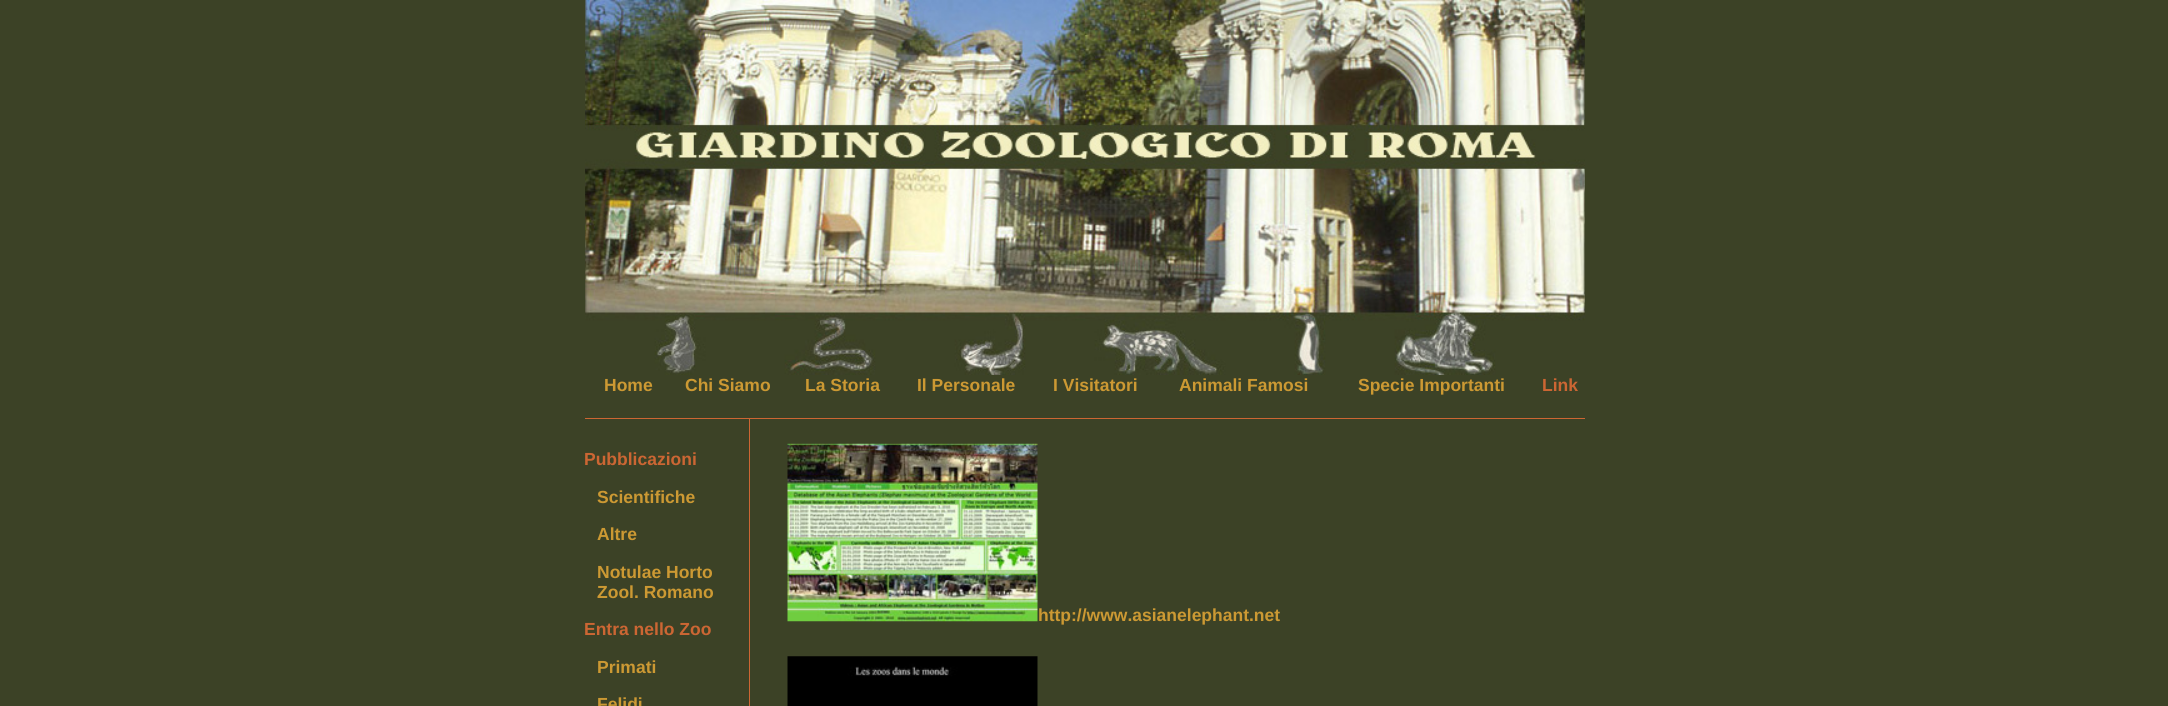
import math
import cairo

surface = cairo.ImageSurface(cairo.FORMAT_RGB24, 2168, 706)
ctx = cairo.Context(surface)
options = cairo.FontOptions()
options.set_hint_metrics(cairo.HINT_METRICS_OFF)
options.set_hint_style(cairo.HINT_STYLE_NONE)
ctx.set_font_options(options)
ctx.set_miter_limit(4)


def set_color(code):
    ctx.set_source_rgb(*(v / 255 for v in bytes.fromhex(code[-6:])))


def draw_text(x, y, s, family, size, color, bold=False, italic=False):
    ctx.select_font_face(family, cairo.FONT_SLANT_ITALIC if italic else cairo.FONT_SLANT_NORMAL, cairo.FONT_WEIGHT_BOLD if bold else cairo.FONT_WEIGHT_NORMAL)
    ctx.set_font_size(size)
    set_color(color)
    ctx.move_to(x, y)
    ctx.show_text(s)


def fill_rect(x, y, w, h, color):
    set_color(color)
    ctx.rectangle(x, y, w, h)
    ctx.fill()


def draw_image(path, x, y, w, h):
    ctx.save()
    ctx.set_source_surface(cairo.ImageSurface.create_from_png(path), x, y)
    ctx.rectangle(x, y, w, h)
    ctx.fill()
    ctx.restore()


set_color("#3c4226")
ctx.paint()
draw_image("assets/img1.png", 585, 0, 1000, 375)
draw_text(604, 391, "Home", "Liberation Sans", 17.5, "#cc9933", bold=True)
draw_text(685, 391, "Chi Siamo", "Liberation Sans", 17.5, "#cc9933", bold=True)
draw_text(805, 391, "La Storia", "Liberation Sans", 17.5, "#cc9933", bold=True)
draw_text(917, 391, "Il Personale", "Liberation Sans", 17.5, "#cc9933", bold=True)
draw_text(1053, 391, "I Visitatori", "Liberation Sans", 17.5, "#cc9933", bold=True)
draw_text(1179, 391, "Animali Famosi", "Liberation Sans", 17.5, "#cc9933", bold=True)
draw_text(1358, 391, "Specie Importanti", "Liberation Sans", 17.5, "#cc9933", bold=True)
draw_text(1542, 391, "Link", "Liberation Sans", 17.5, "#cc6633", bold=True)
fill_rect(585, 418, 1000, 1, "#cc6633")
draw_text(584, 465, "Pubblicazioni", "Liberation Sans", 17.5, "#cc6633", bold=True)
draw_text(597, 503, "Scientifiche", "Liberation Sans", 17.5, "#cc9933", bold=True)
draw_text(597, 540, "Altre", "Liberation Sans", 17.5, "#cc9933", bold=True)
draw_text(597, 578, "Notulae Horto", "Liberation Sans", 17.5, "#cc9933", bold=True)
draw_text(597, 598, "Zool. Romano", "Liberation Sans", 17.5, "#cc9933", bold=True)
draw_text(584, 635, "Entra nello Zoo", "Liberation Sans", 17.5, "#cc6633", bold=True)
draw_text(597, 673, "Primati", "Liberation Sans", 17.5, "#cc9933", bold=True)
draw_text(597, 710, "Felidi", "Liberation Sans", 17.5, "#cc9933", bold=True)
fill_rect(749, 419, 1, 287, "#cc6633")
draw_image("assets/img2.png", 787, 443, 251, 179)
draw_text(1038, 621, "http://www.asianelephant.net", "Liberation Sans", 17.5, "#cc9933", bold=True)
draw_image("assets/img3.png", 787, 656, 251, 50)
surface.write_to_png("output.png")
